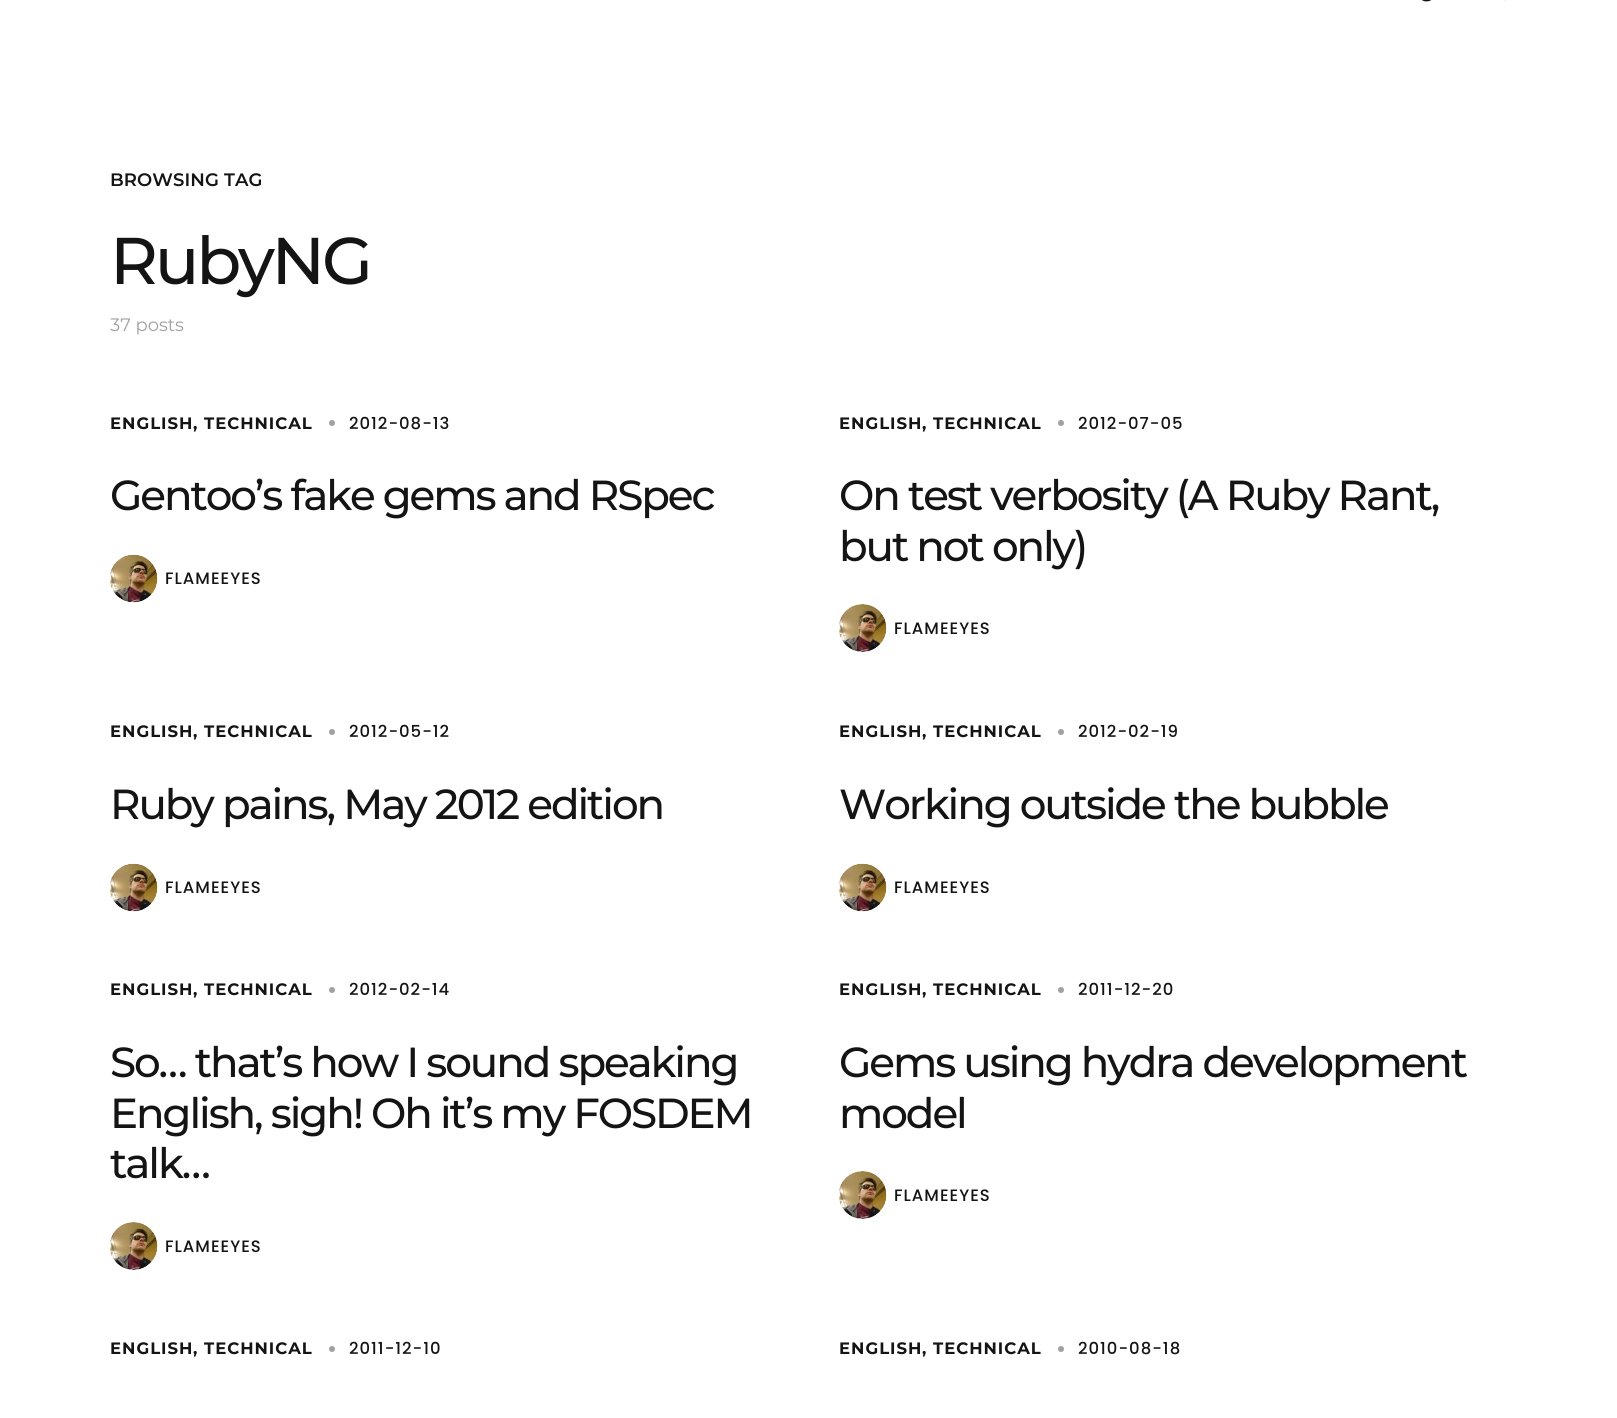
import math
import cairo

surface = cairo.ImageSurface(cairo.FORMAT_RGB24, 1617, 1418)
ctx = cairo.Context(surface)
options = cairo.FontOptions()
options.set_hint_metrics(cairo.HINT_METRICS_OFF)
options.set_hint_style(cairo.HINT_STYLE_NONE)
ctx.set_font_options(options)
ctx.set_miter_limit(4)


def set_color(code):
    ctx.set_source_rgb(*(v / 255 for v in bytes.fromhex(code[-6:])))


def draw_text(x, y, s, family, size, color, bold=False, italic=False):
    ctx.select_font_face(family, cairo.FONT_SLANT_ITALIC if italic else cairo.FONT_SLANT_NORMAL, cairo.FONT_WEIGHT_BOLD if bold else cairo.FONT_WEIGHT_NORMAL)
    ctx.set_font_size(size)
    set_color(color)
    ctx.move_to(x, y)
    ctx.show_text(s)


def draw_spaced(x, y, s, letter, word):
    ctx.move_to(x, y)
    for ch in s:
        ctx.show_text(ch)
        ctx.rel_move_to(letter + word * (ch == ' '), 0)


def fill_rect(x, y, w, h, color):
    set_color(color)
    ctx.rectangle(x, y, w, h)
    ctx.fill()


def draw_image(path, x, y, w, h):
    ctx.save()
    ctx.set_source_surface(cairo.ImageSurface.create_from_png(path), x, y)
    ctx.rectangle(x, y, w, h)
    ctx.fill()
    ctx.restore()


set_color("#ffffff")
ctx.paint()
draw_image("assets/img1.png", 1422, 0, 10, 2)
fill_rect(1505, 0, 1, 1, "#e0e0e0")
ctx.select_font_face("Montserrat SemiBold")
ctx.set_font_size(18)
set_color("#141414")
draw_spaced(110, 186, "BROWSING TAG", 0.1, 0)
ctx.select_font_face("Montserrat Medium")
ctx.set_font_size(66)
draw_spaced(110, 284, "RubyNG", -3.25, 0)
draw_text(110, 331, "37 posts", "Montserrat", 18, "#a1a1a1")
ctx.select_font_face("Montserrat", cairo.FONT_SLANT_NORMAL, cairo.FONT_WEIGHT_BOLD)
ctx.set_font_size(16.5)
set_color("#141414")
draw_spaced(110, 429, "ENGLISH", 1, 0)
draw_spaced(193, 429, ", TECHNICAL", 1, 0)
set_color("#a1a1a1")
ctx.new_path()
ctx.arc(332, 423, 3, 0, 2 * math.pi)
ctx.fill()
ctx.select_font_face("Poppins Medium")
set_color("#141414")
draw_spaced(349, 429, "2012-08-13", 1, 0)
ctx.select_font_face("Montserrat Medium")
ctx.set_font_size(42)
draw_spaced(110, 510, "Gentoo’s fake gems and RSpec", -2.1, 0)
draw_image("assets/img2.png", 110, 554, 48, 49)
ctx.select_font_face("Poppins Medium")
ctx.set_font_size(16.5)
draw_spaced(165, 584, "FLAMEEYES", 1, 0)
ctx.select_font_face("Montserrat", cairo.FONT_SLANT_NORMAL, cairo.FONT_WEIGHT_BOLD)
draw_spaced(839, 429, "ENGLISH", 1, 0)
draw_spaced(922, 429, ", TECHNICAL", 1, 0)
set_color("#a1a1a1")
ctx.new_path()
ctx.arc(1061, 423, 3, 0, 2 * math.pi)
ctx.fill()
ctx.select_font_face("Poppins Medium")
set_color("#141414")
draw_spaced(1078, 429, "2012-07-05", 1, 0)
ctx.select_font_face("Montserrat Medium")
ctx.set_font_size(42)
draw_spaced(839, 510, "On test verbosity (A Ruby Rant,", -2.1, 0)
draw_spaced(839, 561, "but not only)", -2.1, 0)
draw_image("assets/img3.png", 839, 604, 48, 48)
ctx.select_font_face("Poppins Medium")
ctx.set_font_size(16.5)
draw_spaced(894, 634, "FLAMEEYES", 1, 0)
ctx.select_font_face("Montserrat", cairo.FONT_SLANT_NORMAL, cairo.FONT_WEIGHT_BOLD)
draw_spaced(110, 737, "ENGLISH", 1, 0)
draw_spaced(193, 737, ", TECHNICAL", 1, 0)
set_color("#a1a1a1")
ctx.new_path()
ctx.arc(332, 732, 3, 0, 2 * math.pi)
ctx.fill()
ctx.select_font_face("Poppins Medium")
set_color("#141414")
draw_spaced(349, 737, "2012-05-12", 1, 0)
ctx.select_font_face("Montserrat Medium")
ctx.set_font_size(42)
draw_spaced(110, 819, "Ruby pains, May 2012 edition", -2.1, 0)
draw_image("assets/img2.png", 110, 863, 48, 49)
ctx.select_font_face("Poppins Medium")
ctx.set_font_size(16.5)
draw_spaced(165, 893, "FLAMEEYES", 1, 0)
ctx.select_font_face("Montserrat", cairo.FONT_SLANT_NORMAL, cairo.FONT_WEIGHT_BOLD)
draw_spaced(839, 737, "ENGLISH", 1, 0)
draw_spaced(922, 737, ", TECHNICAL", 1, 0)
set_color("#a1a1a1")
ctx.new_path()
ctx.arc(1061, 732, 3, 0, 2 * math.pi)
ctx.fill()
ctx.select_font_face("Poppins Medium")
set_color("#141414")
draw_spaced(1078, 737, "2012-02-19", 1, 0)
ctx.select_font_face("Montserrat Medium")
ctx.set_font_size(42)
draw_spaced(839, 819, "Working outside the bubble", -2.1, 0)
draw_image("assets/img2.png", 839, 863, 48, 49)
ctx.select_font_face("Poppins Medium")
ctx.set_font_size(16.5)
draw_spaced(894, 893, "FLAMEEYES", 1, 0)
ctx.select_font_face("Montserrat", cairo.FONT_SLANT_NORMAL, cairo.FONT_WEIGHT_BOLD)
draw_spaced(110, 995, "ENGLISH", 1, 0)
draw_spaced(193, 995, ", TECHNICAL", 1, 0)
set_color("#a1a1a1")
ctx.new_path()
ctx.arc(332, 990, 3, 0, 2 * math.pi)
ctx.fill()
ctx.select_font_face("Poppins Medium")
set_color("#141414")
draw_spaced(349, 995, "2012-02-14", 1, 0)
ctx.select_font_face("Montserrat Medium")
ctx.set_font_size(42)
draw_spaced(110, 1077, "So… that’s how I sound speaking", -2.1, 0)
draw_spaced(110, 1128, "English, sigh! Oh it’s my FOSDEM", -2.1, 0)
draw_spaced(110, 1178, "talk…", -2.1, 0)
draw_image("assets/img3.png", 110, 1222, 48, 48)
ctx.select_font_face("Poppins Medium")
ctx.set_font_size(16.5)
draw_spaced(165, 1252, "FLAMEEYES", 1, 0)
ctx.select_font_face("Montserrat", cairo.FONT_SLANT_NORMAL, cairo.FONT_WEIGHT_BOLD)
draw_spaced(839, 995, "ENGLISH", 1, 0)
draw_spaced(922, 995, ", TECHNICAL", 1, 0)
set_color("#a1a1a1")
ctx.new_path()
ctx.arc(1061, 990, 3, 0, 2 * math.pi)
ctx.fill()
ctx.select_font_face("Poppins Medium")
set_color("#141414")
draw_spaced(1078, 995, "2011-12-20", 1, 0)
ctx.select_font_face("Montserrat Medium")
ctx.set_font_size(42)
draw_spaced(839, 1077, "Gems using hydra development", -2.1, 0)
draw_spaced(839, 1128, "model", -2.1, 0)
draw_image("assets/img4.png", 839, 1171, 48, 48)
ctx.select_font_face("Poppins Medium")
ctx.set_font_size(16.5)
draw_spaced(894, 1201, "FLAMEEYES", 1, 0)
ctx.select_font_face("Montserrat", cairo.FONT_SLANT_NORMAL, cairo.FONT_WEIGHT_BOLD)
draw_spaced(110, 1354, "ENGLISH", 1, 0)
draw_spaced(193, 1354, ", TECHNICAL", 1, 0)
set_color("#a1a1a1")
ctx.new_path()
ctx.arc(332, 1349, 3, 0, 2 * math.pi)
ctx.fill()
ctx.select_font_face("Poppins Medium")
set_color("#141414")
draw_spaced(349, 1354, "2011-12-10", 1, 0)
ctx.select_font_face("Montserrat", cairo.FONT_SLANT_NORMAL, cairo.FONT_WEIGHT_BOLD)
draw_spaced(839, 1354, "ENGLISH", 1, 0)
draw_spaced(922, 1354, ", TECHNICAL", 1, 0)
set_color("#a1a1a1")
ctx.new_path()
ctx.arc(1061, 1349, 3, 0, 2 * math.pi)
ctx.fill()
ctx.select_font_face("Poppins Medium")
set_color("#141414")
draw_spaced(1078, 1354, "2010-08-18", 1, 0)
surface.write_to_png("output.png")
